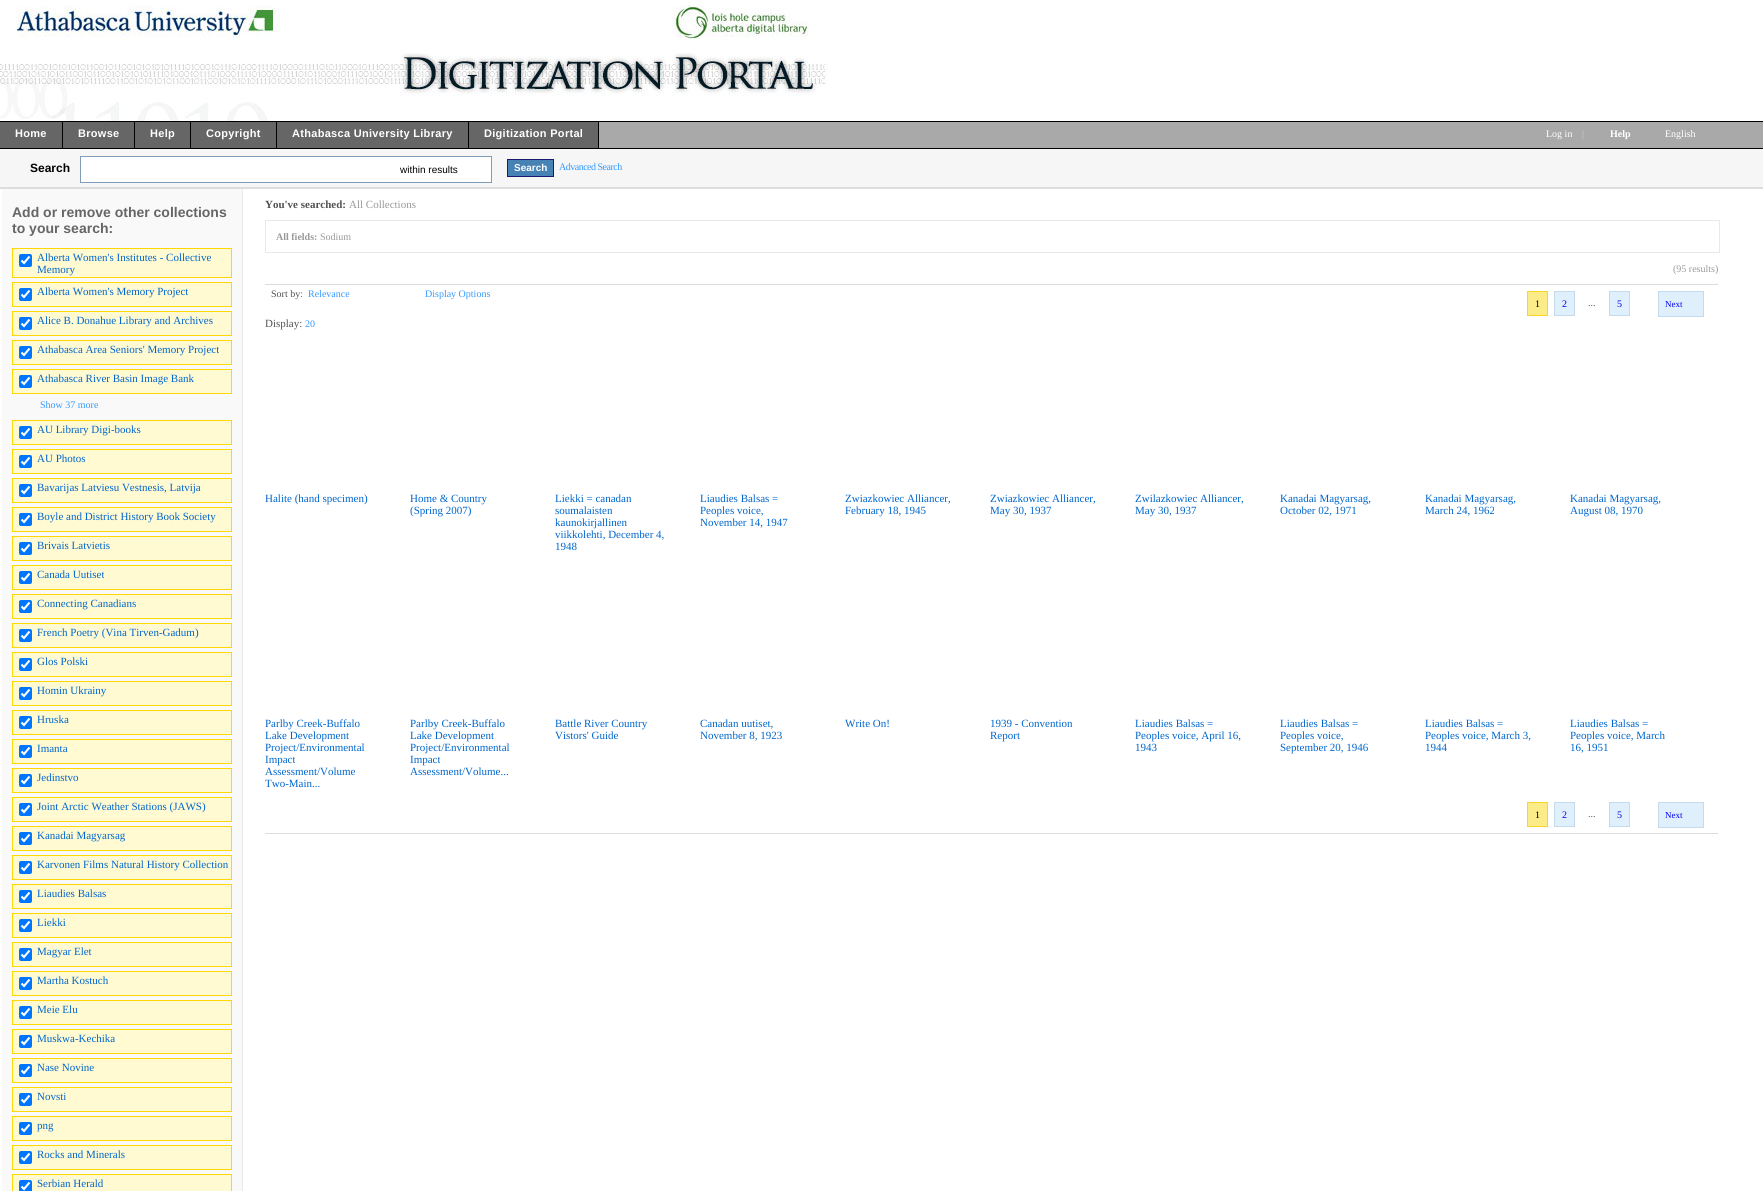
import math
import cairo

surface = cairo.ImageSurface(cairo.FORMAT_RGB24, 1763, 1191)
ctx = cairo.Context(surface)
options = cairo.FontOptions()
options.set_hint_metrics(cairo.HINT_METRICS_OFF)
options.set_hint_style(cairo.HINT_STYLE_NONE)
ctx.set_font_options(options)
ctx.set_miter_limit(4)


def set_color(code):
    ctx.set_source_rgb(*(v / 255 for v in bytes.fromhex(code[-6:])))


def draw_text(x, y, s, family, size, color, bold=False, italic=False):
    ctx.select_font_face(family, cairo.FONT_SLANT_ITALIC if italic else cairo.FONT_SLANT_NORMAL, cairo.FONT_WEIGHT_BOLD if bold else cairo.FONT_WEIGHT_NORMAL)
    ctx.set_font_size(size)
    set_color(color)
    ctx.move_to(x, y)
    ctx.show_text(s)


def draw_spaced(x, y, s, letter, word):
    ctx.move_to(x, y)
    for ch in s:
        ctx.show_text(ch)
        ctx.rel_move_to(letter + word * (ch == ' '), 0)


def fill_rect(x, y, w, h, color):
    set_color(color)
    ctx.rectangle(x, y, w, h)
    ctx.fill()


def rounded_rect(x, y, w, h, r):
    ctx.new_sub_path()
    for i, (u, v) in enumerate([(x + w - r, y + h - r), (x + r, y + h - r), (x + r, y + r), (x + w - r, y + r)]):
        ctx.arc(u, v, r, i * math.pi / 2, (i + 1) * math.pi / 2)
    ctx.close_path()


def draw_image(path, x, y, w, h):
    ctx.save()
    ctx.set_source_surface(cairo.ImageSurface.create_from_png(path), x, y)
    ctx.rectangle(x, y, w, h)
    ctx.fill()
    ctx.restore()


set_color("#ffffff")
ctx.paint()
draw_image("assets/img1.png", 0, 0, 828, 121)
fill_rect(599, 122, 1164, 26, "#a9a9a9")
fill_rect(0, 121, 1763, 1, "#000000")
fill_rect(0, 148, 1763, 1, "#000000")
fill_rect(0, 122, 62, 26, "#666666")
fill_rect(62, 122, 1, 26, "#000000")
ctx.select_font_face("Liberation Sans", cairo.FONT_SLANT_NORMAL, cairo.FONT_WEIGHT_BOLD)
ctx.set_font_size(11)
set_color("#ffffff")
draw_spaced(15, 137, "Home", 0.3, 0)
fill_rect(63, 122, 71, 26, "#666666")
fill_rect(134, 122, 1, 26, "#000000")
set_color("#ffffff")
draw_spaced(78, 137, "Browse", 0.3, 0)
fill_rect(135, 122, 55, 26, "#666666")
fill_rect(190, 122, 1, 26, "#000000")
set_color("#ffffff")
draw_spaced(150, 137, "Help", 0.3, 0)
fill_rect(191, 122, 85, 26, "#666666")
fill_rect(276, 122, 1, 26, "#000000")
set_color("#ffffff")
draw_spaced(206, 137, "Copyright", 0.3, 0)
fill_rect(277, 122, 191, 26, "#666666")
fill_rect(468, 122, 1, 26, "#000000")
set_color("#ffffff")
draw_spaced(292, 137, "Athabasca University Library", 0.3, 0)
fill_rect(469, 122, 129, 26, "#666666")
fill_rect(598, 122, 1, 26, "#000000")
set_color("#ffffff")
draw_spaced(484, 137, "Digitization Portal", 0.3, 0)
draw_text(1546, 137, "Log in", "Liberation Serif", 10, "#ffffff")
draw_text(1582, 137, "|", "Liberation Serif", 10, "#cccccc")
draw_text(1610, 137, "Help", "Liberation Serif", 10, "#ffffff", bold=True)
draw_text(1665, 137, "English", "Liberation Serif", 10, "#ffffff")
fill_rect(0, 149, 1763, 38, "#f6f6f6")
fill_rect(242, 188, 1, 1003, "#e9e9e9")
fill_rect(0, 187, 1763, 2, "#dddddd")
draw_text(30, 172, "Search", "Liberation Sans", 12, "#000000", bold=True)
set_color("#ffffff")
ctx.rectangle(80.5, 156.5, 411, 26)
ctx.fill_preserve()
set_color("#7f9db9")
ctx.set_line_width(1)
ctx.stroke()
draw_text(400, 173, "within results", "Liberation Sans", 10, "#000000")
set_color("#4682b4")
ctx.rectangle(507.5, 159.5, 46, 17)
ctx.fill_preserve()
set_color("#191970")
ctx.stroke()
draw_text(514, 171, "Search", "Liberation Sans", 10, "#ffffff", bold=True)
ctx.select_font_face("Liberation Serif")
set_color("#3399ff")
draw_spaced(559, 170, "Advanced Search", -0.5, 0)
fill_rect(2, 189, 240, 1002, "#f9f9f9")
draw_text(12, 217, "Add or remove other collections", "Liberation Sans", 14, "#666666", bold=True)
draw_text(12, 233, "to your search:", "Liberation Sans", 14, "#666666", bold=True)
set_color("#fffad2")
ctx.rectangle(12.5, 248.5, 219, 29)
ctx.fill_preserve()
set_color("#ffd701")
ctx.stroke()
set_color("#0075ff")
rounded_rect(19, 254, 13, 13, 2)
ctx.fill()
ctx.new_path()
ctx.move_to(21.5, 260.5)
ctx.line_to(24, 263)
ctx.line_to(29.5, 256.5)
set_color("#ffffff")
ctx.set_line_width(2.1)
ctx.stroke()
draw_text(37, 261, "Alberta Women's Institutes - Collective", "Liberation Serif", 11, "#0066cc")
draw_text(37, 273, "Memory", "Liberation Serif", 11, "#0066cc")
set_color("#fffad2")
ctx.rectangle(12.5, 282.5, 219, 24)
ctx.fill_preserve()
set_color("#ffd701")
ctx.set_line_width(1)
ctx.stroke()
set_color("#0075ff")
rounded_rect(19, 288, 13, 13, 2)
ctx.fill()
ctx.new_path()
ctx.move_to(21.5, 294.5)
ctx.line_to(24, 297)
ctx.line_to(29.5, 290.5)
set_color("#ffffff")
ctx.set_line_width(2.1)
ctx.stroke()
draw_text(37, 295, "Alberta Women's Memory Project", "Liberation Serif", 11, "#0066cc")
set_color("#fffad2")
ctx.rectangle(12.5, 311.5, 219, 24)
ctx.fill_preserve()
set_color("#ffd701")
ctx.set_line_width(1)
ctx.stroke()
set_color("#0075ff")
rounded_rect(19, 317, 13, 13, 2)
ctx.fill()
ctx.new_path()
ctx.move_to(21.5, 323.5)
ctx.line_to(24, 326)
ctx.line_to(29.5, 319.5)
set_color("#ffffff")
ctx.set_line_width(2.1)
ctx.stroke()
draw_text(37, 324, "Alice B. Donahue Library and Archives", "Liberation Serif", 11, "#0066cc")
set_color("#fffad2")
ctx.rectangle(12.5, 340.5, 219, 24)
ctx.fill_preserve()
set_color("#ffd701")
ctx.set_line_width(1)
ctx.stroke()
set_color("#0075ff")
rounded_rect(19, 346, 13, 13, 2)
ctx.fill()
ctx.new_path()
ctx.move_to(21.5, 352.5)
ctx.line_to(24, 355)
ctx.line_to(29.5, 348.5)
set_color("#ffffff")
ctx.set_line_width(2.1)
ctx.stroke()
draw_text(37, 353, "Athabasca Area Seniors' Memory Project", "Liberation Serif", 11, "#0066cc")
set_color("#fffad2")
ctx.rectangle(12.5, 369.5, 219, 24)
ctx.fill_preserve()
set_color("#ffd701")
ctx.set_line_width(1)
ctx.stroke()
set_color("#0075ff")
rounded_rect(19, 375, 13, 13, 2)
ctx.fill()
ctx.new_path()
ctx.move_to(21.5, 381.5)
ctx.line_to(24, 384)
ctx.line_to(29.5, 377.5)
set_color("#ffffff")
ctx.set_line_width(2.1)
ctx.stroke()
draw_text(37, 382, "Athabasca River Basin Image Bank", "Liberation Serif", 11, "#0066cc")
draw_text(40, 408, "Show 37 more", "Liberation Serif", 10, "#3399ff")
set_color("#fffad2")
ctx.rectangle(12.5, 420.5, 219, 24)
ctx.fill_preserve()
set_color("#ffd701")
ctx.set_line_width(1)
ctx.stroke()
set_color("#0075ff")
rounded_rect(19, 426, 13, 13, 2)
ctx.fill()
ctx.new_path()
ctx.move_to(21.5, 432.5)
ctx.line_to(24, 435)
ctx.line_to(29.5, 428.5)
set_color("#ffffff")
ctx.set_line_width(2.1)
ctx.stroke()
draw_text(37, 433, "AU Library Digi-books", "Liberation Serif", 11, "#0066cc")
set_color("#fffad2")
ctx.rectangle(12.5, 449.5, 219, 24)
ctx.fill_preserve()
set_color("#ffd701")
ctx.set_line_width(1)
ctx.stroke()
set_color("#0075ff")
rounded_rect(19, 455, 13, 13, 2)
ctx.fill()
ctx.new_path()
ctx.move_to(21.5, 461.5)
ctx.line_to(24, 464)
ctx.line_to(29.5, 457.5)
set_color("#ffffff")
ctx.set_line_width(2.1)
ctx.stroke()
draw_text(37, 462, "AU Photos", "Liberation Serif", 11, "#0066cc")
set_color("#fffad2")
ctx.rectangle(12.5, 478.5, 219, 24)
ctx.fill_preserve()
set_color("#ffd701")
ctx.set_line_width(1)
ctx.stroke()
set_color("#0075ff")
rounded_rect(19, 484, 13, 13, 2)
ctx.fill()
ctx.new_path()
ctx.move_to(21.5, 490.5)
ctx.line_to(24, 493)
ctx.line_to(29.5, 486.5)
set_color("#ffffff")
ctx.set_line_width(2.1)
ctx.stroke()
draw_text(37, 491, "Bavarijas Latviesu Vestnesis, Latvija", "Liberation Serif", 11, "#0066cc")
set_color("#fffad2")
ctx.rectangle(12.5, 507.5, 219, 24)
ctx.fill_preserve()
set_color("#ffd701")
ctx.set_line_width(1)
ctx.stroke()
set_color("#0075ff")
rounded_rect(19, 513, 13, 13, 2)
ctx.fill()
ctx.new_path()
ctx.move_to(21.5, 519.5)
ctx.line_to(24, 522)
ctx.line_to(29.5, 515.5)
set_color("#ffffff")
ctx.set_line_width(2.1)
ctx.stroke()
draw_text(37, 520, "Boyle and District History Book Society", "Liberation Serif", 11, "#0066cc")
set_color("#fffad2")
ctx.rectangle(12.5, 536.5, 219, 24)
ctx.fill_preserve()
set_color("#ffd701")
ctx.set_line_width(1)
ctx.stroke()
set_color("#0075ff")
rounded_rect(19, 542, 13, 13, 2)
ctx.fill()
ctx.new_path()
ctx.move_to(21.5, 548.5)
ctx.line_to(24, 551)
ctx.line_to(29.5, 544.5)
set_color("#ffffff")
ctx.set_line_width(2.1)
ctx.stroke()
draw_text(37, 549, "Brivais Latvietis", "Liberation Serif", 11, "#0066cc")
set_color("#fffad2")
ctx.rectangle(12.5, 565.5, 219, 24)
ctx.fill_preserve()
set_color("#ffd701")
ctx.set_line_width(1)
ctx.stroke()
set_color("#0075ff")
rounded_rect(19, 571, 13, 13, 2)
ctx.fill()
ctx.new_path()
ctx.move_to(21.5, 577.5)
ctx.line_to(24, 580)
ctx.line_to(29.5, 573.5)
set_color("#ffffff")
ctx.set_line_width(2.1)
ctx.stroke()
draw_text(37, 578, "Canada Uutiset", "Liberation Serif", 11, "#0066cc")
set_color("#fffad2")
ctx.rectangle(12.5, 594.5, 219, 24)
ctx.fill_preserve()
set_color("#ffd701")
ctx.set_line_width(1)
ctx.stroke()
set_color("#0075ff")
rounded_rect(19, 600, 13, 13, 2)
ctx.fill()
ctx.new_path()
ctx.move_to(21.5, 606.5)
ctx.line_to(24, 609)
ctx.line_to(29.5, 602.5)
set_color("#ffffff")
ctx.set_line_width(2.1)
ctx.stroke()
draw_text(37, 607, "Connecting Canadians", "Liberation Serif", 11, "#0066cc")
set_color("#fffad2")
ctx.rectangle(12.5, 623.5, 219, 24)
ctx.fill_preserve()
set_color("#ffd701")
ctx.set_line_width(1)
ctx.stroke()
set_color("#0075ff")
rounded_rect(19, 629, 13, 13, 2)
ctx.fill()
ctx.new_path()
ctx.move_to(21.5, 635.5)
ctx.line_to(24, 638)
ctx.line_to(29.5, 631.5)
set_color("#ffffff")
ctx.set_line_width(2.1)
ctx.stroke()
draw_text(37, 636, "French Poetry (Vina Tirven-Gadum)", "Liberation Serif", 11, "#0066cc")
set_color("#fffad2")
ctx.rectangle(12.5, 652.5, 219, 24)
ctx.fill_preserve()
set_color("#ffd701")
ctx.set_line_width(1)
ctx.stroke()
set_color("#0075ff")
rounded_rect(19, 658, 13, 13, 2)
ctx.fill()
ctx.new_path()
ctx.move_to(21.5, 664.5)
ctx.line_to(24, 667)
ctx.line_to(29.5, 660.5)
set_color("#ffffff")
ctx.set_line_width(2.1)
ctx.stroke()
draw_text(37, 665, "Glos Polski", "Liberation Serif", 11, "#0066cc")
set_color("#fffad2")
ctx.rectangle(12.5, 681.5, 219, 24)
ctx.fill_preserve()
set_color("#ffd701")
ctx.set_line_width(1)
ctx.stroke()
set_color("#0075ff")
rounded_rect(19, 687, 13, 13, 2)
ctx.fill()
ctx.new_path()
ctx.move_to(21.5, 693.5)
ctx.line_to(24, 696)
ctx.line_to(29.5, 689.5)
set_color("#ffffff")
ctx.set_line_width(2.1)
ctx.stroke()
draw_text(37, 694, "Homin Ukrainy", "Liberation Serif", 11, "#0066cc")
set_color("#fffad2")
ctx.rectangle(12.5, 710.5, 219, 24)
ctx.fill_preserve()
set_color("#ffd701")
ctx.set_line_width(1)
ctx.stroke()
set_color("#0075ff")
rounded_rect(19, 716, 13, 13, 2)
ctx.fill()
ctx.new_path()
ctx.move_to(21.5, 722.5)
ctx.line_to(24, 725)
ctx.line_to(29.5, 718.5)
set_color("#ffffff")
ctx.set_line_width(2.1)
ctx.stroke()
draw_text(37, 723, "Hruska", "Liberation Serif", 11, "#0066cc")
set_color("#fffad2")
ctx.rectangle(12.5, 739.5, 219, 24)
ctx.fill_preserve()
set_color("#ffd701")
ctx.set_line_width(1)
ctx.stroke()
set_color("#0075ff")
rounded_rect(19, 745, 13, 13, 2)
ctx.fill()
ctx.new_path()
ctx.move_to(21.5, 751.5)
ctx.line_to(24, 754)
ctx.line_to(29.5, 747.5)
set_color("#ffffff")
ctx.set_line_width(2.1)
ctx.stroke()
draw_text(37, 752, "Imanta", "Liberation Serif", 11, "#0066cc")
set_color("#fffad2")
ctx.rectangle(12.5, 768.5, 219, 24)
ctx.fill_preserve()
set_color("#ffd701")
ctx.set_line_width(1)
ctx.stroke()
set_color("#0075ff")
rounded_rect(19, 774, 13, 13, 2)
ctx.fill()
ctx.new_path()
ctx.move_to(21.5, 780.5)
ctx.line_to(24, 783)
ctx.line_to(29.5, 776.5)
set_color("#ffffff")
ctx.set_line_width(2.1)
ctx.stroke()
draw_text(37, 781, "Jedinstvo", "Liberation Serif", 11, "#0066cc")
set_color("#fffad2")
ctx.rectangle(12.5, 797.5, 219, 24)
ctx.fill_preserve()
set_color("#ffd701")
ctx.set_line_width(1)
ctx.stroke()
set_color("#0075ff")
rounded_rect(19, 803, 13, 13, 2)
ctx.fill()
ctx.new_path()
ctx.move_to(21.5, 809.5)
ctx.line_to(24, 812)
ctx.line_to(29.5, 805.5)
set_color("#ffffff")
ctx.set_line_width(2.1)
ctx.stroke()
draw_text(37, 810, "Joint Arctic Weather Stations (JAWS)", "Liberation Serif", 11, "#0066cc")
set_color("#fffad2")
ctx.rectangle(12.5, 826.5, 219, 24)
ctx.fill_preserve()
set_color("#ffd701")
ctx.set_line_width(1)
ctx.stroke()
set_color("#0075ff")
rounded_rect(19, 832, 13, 13, 2)
ctx.fill()
ctx.new_path()
ctx.move_to(21.5, 838.5)
ctx.line_to(24, 841)
ctx.line_to(29.5, 834.5)
set_color("#ffffff")
ctx.set_line_width(2.1)
ctx.stroke()
draw_text(37, 839, "Kanadai Magyarsag", "Liberation Serif", 11, "#0066cc")
set_color("#fffad2")
ctx.rectangle(12.5, 855.5, 219, 24)
ctx.fill_preserve()
set_color("#ffd701")
ctx.set_line_width(1)
ctx.stroke()
set_color("#0075ff")
rounded_rect(19, 861, 13, 13, 2)
ctx.fill()
ctx.new_path()
ctx.move_to(21.5, 867.5)
ctx.line_to(24, 870)
ctx.line_to(29.5, 863.5)
set_color("#ffffff")
ctx.set_line_width(2.1)
ctx.stroke()
draw_text(37, 868, "Karvonen Films Natural History Collection", "Liberation Serif", 11, "#0066cc")
set_color("#fffad2")
ctx.rectangle(12.5, 884.5, 219, 24)
ctx.fill_preserve()
set_color("#ffd701")
ctx.set_line_width(1)
ctx.stroke()
set_color("#0075ff")
rounded_rect(19, 890, 13, 13, 2)
ctx.fill()
ctx.new_path()
ctx.move_to(21.5, 896.5)
ctx.line_to(24, 899)
ctx.line_to(29.5, 892.5)
set_color("#ffffff")
ctx.set_line_width(2.1)
ctx.stroke()
draw_text(37, 897, "Liaudies Balsas", "Liberation Serif", 11, "#0066cc")
set_color("#fffad2")
ctx.rectangle(12.5, 913.5, 219, 24)
ctx.fill_preserve()
set_color("#ffd701")
ctx.set_line_width(1)
ctx.stroke()
set_color("#0075ff")
rounded_rect(19, 919, 13, 13, 2)
ctx.fill()
ctx.new_path()
ctx.move_to(21.5, 925.5)
ctx.line_to(24, 928)
ctx.line_to(29.5, 921.5)
set_color("#ffffff")
ctx.set_line_width(2.1)
ctx.stroke()
draw_text(37, 926, "Liekki", "Liberation Serif", 11, "#0066cc")
set_color("#fffad2")
ctx.rectangle(12.5, 942.5, 219, 24)
ctx.fill_preserve()
set_color("#ffd701")
ctx.set_line_width(1)
ctx.stroke()
set_color("#0075ff")
rounded_rect(19, 948, 13, 13, 2)
ctx.fill()
ctx.new_path()
ctx.move_to(21.5, 954.5)
ctx.line_to(24, 957)
ctx.line_to(29.5, 950.5)
set_color("#ffffff")
ctx.set_line_width(2.1)
ctx.stroke()
draw_text(37, 955, "Magyar Elet", "Liberation Serif", 11, "#0066cc")
set_color("#fffad2")
ctx.rectangle(12.5, 971.5, 219, 24)
ctx.fill_preserve()
set_color("#ffd701")
ctx.set_line_width(1)
ctx.stroke()
set_color("#0075ff")
rounded_rect(19, 977, 13, 13, 2)
ctx.fill()
ctx.new_path()
ctx.move_to(21.5, 983.5)
ctx.line_to(24, 986)
ctx.line_to(29.5, 979.5)
set_color("#ffffff")
ctx.set_line_width(2.1)
ctx.stroke()
draw_text(37, 984, "Martha Kostuch", "Liberation Serif", 11, "#0066cc")
set_color("#fffad2")
ctx.rectangle(12.5, 1000.5, 219, 24)
ctx.fill_preserve()
set_color("#ffd701")
ctx.set_line_width(1)
ctx.stroke()
set_color("#0075ff")
rounded_rect(19, 1006, 13, 13, 2)
ctx.fill()
ctx.new_path()
ctx.move_to(21.5, 1012.5)
ctx.line_to(24, 1015)
ctx.line_to(29.5, 1008.5)
set_color("#ffffff")
ctx.set_line_width(2.1)
ctx.stroke()
draw_text(37, 1013, "Meie Elu", "Liberation Serif", 11, "#0066cc")
set_color("#fffad2")
ctx.rectangle(12.5, 1029.5, 219, 24)
ctx.fill_preserve()
set_color("#ffd701")
ctx.set_line_width(1)
ctx.stroke()
set_color("#0075ff")
rounded_rect(19, 1035, 13, 13, 2)
ctx.fill()
ctx.new_path()
ctx.move_to(21.5, 1041.5)
ctx.line_to(24, 1044)
ctx.line_to(29.5, 1037.5)
set_color("#ffffff")
ctx.set_line_width(2.1)
ctx.stroke()
draw_text(37, 1042, "Muskwa-Kechika", "Liberation Serif", 11, "#0066cc")
set_color("#fffad2")
ctx.rectangle(12.5, 1058.5, 219, 24)
ctx.fill_preserve()
set_color("#ffd701")
ctx.set_line_width(1)
ctx.stroke()
set_color("#0075ff")
rounded_rect(19, 1064, 13, 13, 2)
ctx.fill()
ctx.new_path()
ctx.move_to(21.5, 1070.5)
ctx.line_to(24, 1073)
ctx.line_to(29.5, 1066.5)
set_color("#ffffff")
ctx.set_line_width(2.1)
ctx.stroke()
draw_text(37, 1071, "Nase Novine", "Liberation Serif", 11, "#0066cc")
set_color("#fffad2")
ctx.rectangle(12.5, 1087.5, 219, 24)
ctx.fill_preserve()
set_color("#ffd701")
ctx.set_line_width(1)
ctx.stroke()
set_color("#0075ff")
rounded_rect(19, 1093, 13, 13, 2)
ctx.fill()
ctx.new_path()
ctx.move_to(21.5, 1099.5)
ctx.line_to(24, 1102)
ctx.line_to(29.5, 1095.5)
set_color("#ffffff")
ctx.set_line_width(2.1)
ctx.stroke()
draw_text(37, 1100, "Novsti", "Liberation Serif", 11, "#0066cc")
set_color("#fffad2")
ctx.rectangle(12.5, 1116.5, 219, 24)
ctx.fill_preserve()
set_color("#ffd701")
ctx.set_line_width(1)
ctx.stroke()
set_color("#0075ff")
rounded_rect(19, 1122, 13, 13, 2)
ctx.fill()
ctx.new_path()
ctx.move_to(21.5, 1128.5)
ctx.line_to(24, 1131)
ctx.line_to(29.5, 1124.5)
set_color("#ffffff")
ctx.set_line_width(2.1)
ctx.stroke()
draw_text(37, 1129, "png", "Liberation Serif", 11, "#0066cc")
set_color("#fffad2")
ctx.rectangle(12.5, 1145.5, 219, 24)
ctx.fill_preserve()
set_color("#ffd701")
ctx.set_line_width(1)
ctx.stroke()
set_color("#0075ff")
rounded_rect(19, 1151, 13, 13, 2)
ctx.fill()
ctx.new_path()
ctx.move_to(21.5, 1157.5)
ctx.line_to(24, 1160)
ctx.line_to(29.5, 1153.5)
set_color("#ffffff")
ctx.set_line_width(2.1)
ctx.stroke()
draw_text(37, 1158, "Rocks and Minerals", "Liberation Serif", 11, "#0066cc")
set_color("#fffad2")
ctx.rectangle(12.5, 1174.5, 219, 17)
ctx.fill_preserve()
set_color("#ffd701")
ctx.set_line_width(1)
ctx.stroke()
set_color("#0075ff")
rounded_rect(19, 1180, 13, 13, 2)
ctx.fill()
ctx.new_path()
ctx.move_to(21.5, 1186.5)
ctx.line_to(24, 1189)
ctx.line_to(29.5, 1182.5)
set_color("#ffffff")
ctx.set_line_width(2.1)
ctx.stroke()
draw_text(37, 1187, "Serbian Herald", "Liberation Serif", 11, "#0066cc")
draw_text(265, 208, "You've searched:", "Liberation Serif", 11, "#525252", bold=True)
draw_text(349, 208, "All Collections", "Liberation Serif", 11, "#999999")
ctx.rectangle(265.5, 220.5, 1454, 32)
set_color("#e9e9e9")
ctx.set_line_width(1)
ctx.stroke()
draw_text(276, 240, "All fields:", "Liberation Serif", 10, "#999999", bold=True)
draw_text(320, 240, "Sodium", "Liberation Serif", 10, "#999999")
draw_text(1673, 272, "(95 results)", "Liberation Serif", 10, "#999999")
fill_rect(265, 284, 1453, 1, "#dcdcdc")
draw_text(271, 297, "Sort by:", "Liberation Serif", 10, "#525252")
draw_text(308, 297, "Relevance", "Liberation Serif", 10, "#3399ff")
draw_text(425, 297, "Display Options", "Liberation Serif", 10, "#3399ff")
set_color("#fbec88")
ctx.rectangle(1527.5, 291.5, 20, 24)
ctx.fill_preserve()
set_color("#fad42e")
ctx.stroke()
draw_text(1535, 307, "1", "Liberation Serif", 10, "#000000")
set_color("#dfeffc")
ctx.rectangle(1554.5, 291.5, 20, 24)
ctx.fill_preserve()
set_color("#c5dbec")
ctx.stroke()
draw_text(1562, 307, "2", "Liberation Serif", 10, "#0000ee")
draw_text(1588, 306, "...", "Liberation Serif", 10, "#525252")
set_color("#dfeffc")
ctx.rectangle(1609.5, 291.5, 20, 24)
ctx.fill_preserve()
set_color("#c5dbec")
ctx.stroke()
draw_text(1617, 307, "5", "Liberation Serif", 10, "#0000ee")
set_color("#dfeffc")
ctx.rectangle(1658.5, 291.5, 45, 25)
ctx.fill_preserve()
set_color("#c5dbec")
ctx.stroke()
draw_text(1665, 307, "Next", "Liberation Serif", 9, "#0000ee")
draw_text(265, 327, "Display:", "Liberation Serif", 11, "#525252")
draw_text(305, 327, "20", "Liberation Serif", 10, "#3399ff")
draw_text(265, 502, "Halite (hand specimen)", "Liberation Serif", 11, "#0066cc")
draw_text(410, 502, "Home & Country", "Liberation Serif", 11, "#0066cc")
draw_text(410, 514, "(Spring 2007)", "Liberation Serif", 11, "#0066cc")
draw_text(555, 502, "Liekki = canadan", "Liberation Serif", 11, "#0066cc")
draw_text(555, 514, "soumalaisten", "Liberation Serif", 11, "#0066cc")
draw_text(555, 526, "kaunokirjallinen", "Liberation Serif", 11, "#0066cc")
draw_text(555, 538, "viikkolehti, December 4,", "Liberation Serif", 11, "#0066cc")
draw_text(555, 550, "1948", "Liberation Serif", 11, "#0066cc")
draw_text(700, 502, "Liaudies Balsas =", "Liberation Serif", 11, "#0066cc")
draw_text(700, 514, "Peoples voice,", "Liberation Serif", 11, "#0066cc")
draw_text(700, 526, "November 14, 1947", "Liberation Serif", 11, "#0066cc")
draw_text(845, 502, "Zwiazkowiec Alliancer,", "Liberation Serif", 11, "#0066cc")
draw_text(845, 514, "February 18, 1945", "Liberation Serif", 11, "#0066cc")
draw_text(990, 502, "Zwiazkowiec Alliancer,", "Liberation Serif", 11, "#0066cc")
draw_text(990, 514, "May 30, 1937", "Liberation Serif", 11, "#0066cc")
draw_text(1135, 502, "Zwilazkowiec Alliancer,", "Liberation Serif", 11, "#0066cc")
draw_text(1135, 514, "May 30, 1937", "Liberation Serif", 11, "#0066cc")
draw_text(1280, 502, "Kanadai Magyarsag,", "Liberation Serif", 11, "#0066cc")
draw_text(1280, 514, "October 02, 1971", "Liberation Serif", 11, "#0066cc")
draw_text(1425, 502, "Kanadai Magyarsag,", "Liberation Serif", 11, "#0066cc")
draw_text(1425, 514, "March 24, 1962", "Liberation Serif", 11, "#0066cc")
draw_text(1570, 502, "Kanadai Magyarsag,", "Liberation Serif", 11, "#0066cc")
draw_text(1570, 514, "August 08, 1970", "Liberation Serif", 11, "#0066cc")
draw_text(265, 727, "Parlby Creek-Buffalo", "Liberation Serif", 11, "#0066cc")
draw_text(265, 739, "Lake Development", "Liberation Serif", 11, "#0066cc")
draw_text(265, 751, "Project/Environmental", "Liberation Serif", 11, "#0066cc")
draw_text(265, 763, "Impact", "Liberation Serif", 11, "#0066cc")
draw_text(265, 775, "Assessment/Volume", "Liberation Serif", 11, "#0066cc")
draw_text(265, 787, "Two-Main...", "Liberation Serif", 11, "#0066cc")
draw_text(410, 727, "Parlby Creek-Buffalo", "Liberation Serif", 11, "#0066cc")
draw_text(410, 739, "Lake Development", "Liberation Serif", 11, "#0066cc")
draw_text(410, 751, "Project/Environmental", "Liberation Serif", 11, "#0066cc")
draw_text(410, 763, "Impact", "Liberation Serif", 11, "#0066cc")
draw_text(410, 775, "Assessment/Volume...", "Liberation Serif", 11, "#0066cc")
draw_text(555, 727, "Battle River Country", "Liberation Serif", 11, "#0066cc")
draw_text(555, 739, "Vistors' Guide", "Liberation Serif", 11, "#0066cc")
draw_text(700, 727, "Canadan uutiset,", "Liberation Serif", 11, "#0066cc")
draw_text(700, 739, "November 8, 1923", "Liberation Serif", 11, "#0066cc")
draw_text(845, 727, "Write On!", "Liberation Serif", 11, "#0066cc")
draw_text(990, 727, "1939 - Convention", "Liberation Serif", 11, "#0066cc")
draw_text(990, 739, "Report", "Liberation Serif", 11, "#0066cc")
draw_text(1135, 727, "Liaudies Balsas =", "Liberation Serif", 11, "#0066cc")
draw_text(1135, 739, "Peoples voice, April 16,", "Liberation Serif", 11, "#0066cc")
draw_text(1135, 751, "1943", "Liberation Serif", 11, "#0066cc")
draw_text(1280, 727, "Liaudies Balsas =", "Liberation Serif", 11, "#0066cc")
draw_text(1280, 739, "Peoples voice,", "Liberation Serif", 11, "#0066cc")
draw_text(1280, 751, "September 20, 1946", "Liberation Serif", 11, "#0066cc")
draw_text(1425, 727, "Liaudies Balsas =", "Liberation Serif", 11, "#0066cc")
draw_text(1425, 739, "Peoples voice, March 3,", "Liberation Serif", 11, "#0066cc")
draw_text(1425, 751, "1944", "Liberation Serif", 11, "#0066cc")
draw_text(1570, 727, "Liaudies Balsas =", "Liberation Serif", 11, "#0066cc")
draw_text(1570, 739, "Peoples voice, March", "Liberation Serif", 11, "#0066cc")
draw_text(1570, 751, "16, 1951", "Liberation Serif", 11, "#0066cc")
fill_rect(265, 833, 1453, 1, "#dcdcdc")
set_color("#fbec88")
ctx.rectangle(1527.5, 802.5, 20, 24)
ctx.fill_preserve()
set_color("#fad42e")
ctx.stroke()
draw_text(1535, 818, "1", "Liberation Serif", 10, "#000000")
set_color("#dfeffc")
ctx.rectangle(1554.5, 802.5, 20, 24)
ctx.fill_preserve()
set_color("#c5dbec")
ctx.stroke()
draw_text(1562, 818, "2", "Liberation Serif", 10, "#0000ee")
draw_text(1588, 817, "...", "Liberation Serif", 10, "#525252")
set_color("#dfeffc")
ctx.rectangle(1609.5, 802.5, 20, 24)
ctx.fill_preserve()
set_color("#c5dbec")
ctx.stroke()
draw_text(1617, 818, "5", "Liberation Serif", 10, "#0000ee")
set_color("#dfeffc")
ctx.rectangle(1658.5, 802.5, 45, 25)
ctx.fill_preserve()
set_color("#c5dbec")
ctx.stroke()
draw_text(1665, 818, "Next", "Liberation Serif", 9, "#0000ee")
surface.write_to_png("output.png")
